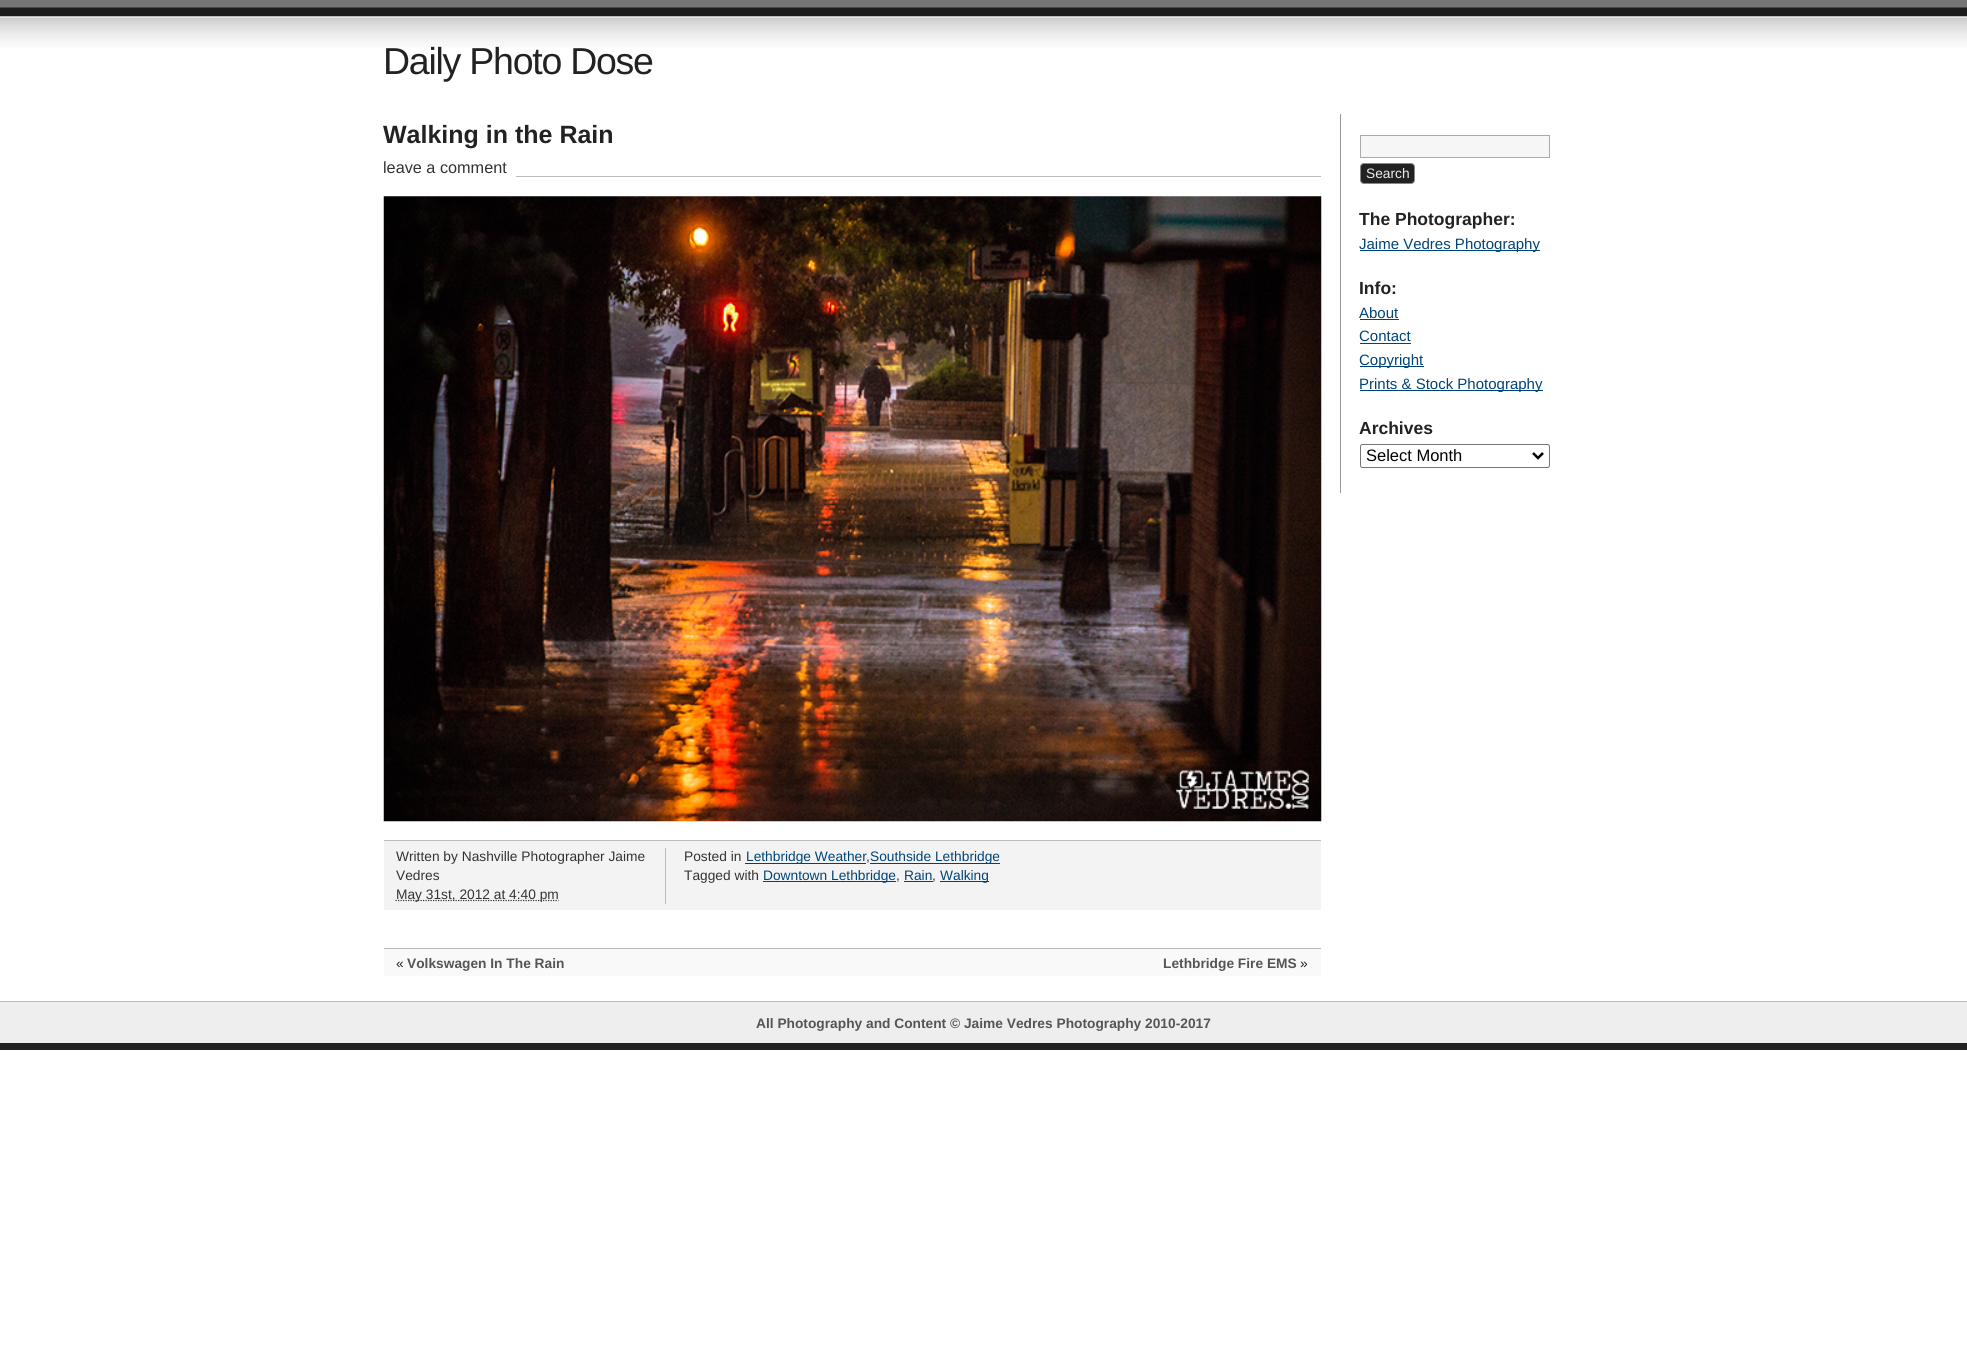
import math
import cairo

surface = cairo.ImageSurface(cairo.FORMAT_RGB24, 1967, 1355)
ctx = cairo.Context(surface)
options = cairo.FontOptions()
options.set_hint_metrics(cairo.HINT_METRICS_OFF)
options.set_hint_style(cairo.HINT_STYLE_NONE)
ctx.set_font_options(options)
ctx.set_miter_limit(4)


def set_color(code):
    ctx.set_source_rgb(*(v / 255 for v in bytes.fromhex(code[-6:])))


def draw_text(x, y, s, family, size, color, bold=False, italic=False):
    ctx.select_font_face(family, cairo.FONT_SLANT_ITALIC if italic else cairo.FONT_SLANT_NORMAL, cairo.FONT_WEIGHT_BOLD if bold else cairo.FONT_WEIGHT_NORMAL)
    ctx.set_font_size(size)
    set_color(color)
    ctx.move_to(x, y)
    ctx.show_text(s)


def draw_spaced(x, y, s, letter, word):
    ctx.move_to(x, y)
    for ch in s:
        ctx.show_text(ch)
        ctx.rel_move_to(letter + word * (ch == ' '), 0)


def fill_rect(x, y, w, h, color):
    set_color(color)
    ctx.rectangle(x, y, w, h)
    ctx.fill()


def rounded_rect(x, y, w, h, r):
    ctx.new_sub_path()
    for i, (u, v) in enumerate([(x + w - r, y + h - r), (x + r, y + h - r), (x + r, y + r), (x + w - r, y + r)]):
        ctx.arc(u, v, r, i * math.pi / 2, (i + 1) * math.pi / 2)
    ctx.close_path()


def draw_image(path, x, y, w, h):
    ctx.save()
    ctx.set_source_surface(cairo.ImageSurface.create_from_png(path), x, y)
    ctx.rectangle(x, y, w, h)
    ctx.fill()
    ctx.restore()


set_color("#ffffff")
ctx.paint()
draw_image("assets/img1.png", 0, 0, 1967, 48)
ctx.select_font_face("Liberation Sans")
ctx.set_font_size(37.5)
set_color("#222222")
draw_spaced(383, 74, "Daily Photo Dose", -1.25, 0)
draw_text(383, 143, "Walking in the Rain", "Liberation Sans", 25, "#222222", bold=True)
fill_rect(516, 176, 805, 1, "#bbbbbb")
draw_text(383, 173, "leave a comment", "Liberation Sans", 16.25, "#333333")
draw_image("assets/img2.png", 383, 196, 939, 626)
fill_rect(384, 841, 937, 69, "#f3f3f3")
fill_rect(384, 840, 937, 1, "#bbbbbb")
fill_rect(665, 848, 1, 56, "#bbbbbb")
draw_text(396, 861, "Written by Nashville Photographer Jaime", "Liberation Sans", 13.75, "#333333")
draw_text(396, 880, "Vedres", "Liberation Sans", 13.75, "#333333")
ctx.new_path()
ctx.move_to(395.5, 900.5)
ctx.line_to(558.5, 900.5)
ctx.set_line_width(1.2)
ctx.set_dash([1.25, 1.25])
ctx.stroke()
draw_text(396, 899, "May 31st, 2012 at 4:40 pm", "Liberation Sans", 13.75, "#333333")
draw_text(684, 861, "Posted in", "Liberation Sans", 13.75, "#333333")
fill_rect(745, 863, 121, 1, "#004477")
draw_text(746, 861, "Lethbridge Weather", "Liberation Sans", 13.75, "#004477")
draw_text(866, 861, ",", "Liberation Sans", 13.75, "#333333")
fill_rect(870, 863, 130, 1, "#004477")
draw_text(870, 861, "Southside Lethbridge", "Liberation Sans", 13.75, "#004477")
draw_text(684, 880, "Tagged with", "Liberation Sans", 13.75, "#333333")
fill_rect(763, 881, 133, 1, "#004477")
draw_text(763, 880, "Downtown Lethbridge", "Liberation Sans", 13.75, "#004477")
draw_text(896, 880, ",", "Liberation Sans", 13.75, "#333333")
draw_text(904, 880, "Rain", "Liberation Sans", 13.75, "#004477")
fill_rect(904, 881, 29, 1, "#004477")
draw_text(932, 880, ",", "Liberation Sans", 13.75, "#333333")
fill_rect(940, 881, 49, 1, "#004477")
draw_text(940, 880, "Walking", "Liberation Sans", 13.75, "#004477")
fill_rect(384, 949, 937, 27, "#f9f9f9")
fill_rect(384, 948, 937, 1, "#bbbbbb")
draw_text(396, 968, "«", "Liberation Sans", 13.75, "#222222")
draw_text(407, 968, "Volkswagen In The Rain", "Liberation Sans", 13.75, "#555555", bold=True)
draw_text(1163, 968, "Lethbridge Fire EMS", "Liberation Sans", 13.75, "#555555", bold=True)
draw_text(1300, 968, "»", "Liberation Sans", 13.75, "#222222")
fill_rect(1340, 114, 1, 379, "#999999")
set_color("#f6f6f6")
ctx.rectangle(1360.5, 135.5, 189, 22)
ctx.fill_preserve()
set_color("#aaaaaa")
ctx.set_line_width(1)
ctx.set_dash([])
ctx.stroke()
set_color("#222222")
rounded_rect(1360.5, 163.5, 54, 20, 3.5)
ctx.fill_preserve()
set_color("#888888")
ctx.stroke()
draw_text(1366, 178, "Search", "Liberation Sans", 13.75, "#eeeeee")
draw_text(1359, 225, "The Photographer:", "Liberation Sans", 17.5, "#222222", bold=True)
fill_rect(1360, 250, 180, 1, "#004477")
draw_text(1359, 249, "Jaime Vedres Photography", "Liberation Sans", 15, "#004477")
draw_text(1359, 294, "Info:", "Liberation Sans", 17.5, "#222222", bold=True)
draw_text(1359, 318, "About", "Liberation Sans", 15, "#004477")
fill_rect(1360, 319, 39, 1, "#004477")
draw_text(1359, 341, "Contact", "Liberation Sans", 15, "#004477")
fill_rect(1360, 343, 51, 1, "#004477")
fill_rect(1360, 366, 64, 1, "#004477")
draw_text(1359, 365, "Copyright", "Liberation Sans", 15, "#004477")
fill_rect(1360, 390, 183, 1, "#004477")
draw_text(1359, 389, "Prints & Stock Photography", "Liberation Sans", 15, "#004477")
draw_text(1359, 434, "Archives", "Liberation Sans", 17.5, "#222222", bold=True)
rounded_rect(1360.5, 444.5, 189, 23, 2)
set_color("#767676")
ctx.stroke()
ctx.new_path()
ctx.move_to(1533, 453)
ctx.line_to(1538, 458)
ctx.line_to(1543, 453)
set_color("#000000")
ctx.set_line_width(2.5)
ctx.stroke()
draw_text(1366, 461, "Select Month", "Liberation Sans", 16.5, "#000000")
fill_rect(0, 1002, 1967, 41, "#eeeeee")
fill_rect(0, 1001, 1967, 1, "#bbbbbb")
fill_rect(0, 1043, 1967, 7, "#222222")
draw_text(756, 1028, "All Photography and Content © Jaime Vedres Photography 2010-2017", "Liberation Sans", 13.75, "#555555", bold=True)
surface.write_to_png("output.png")
